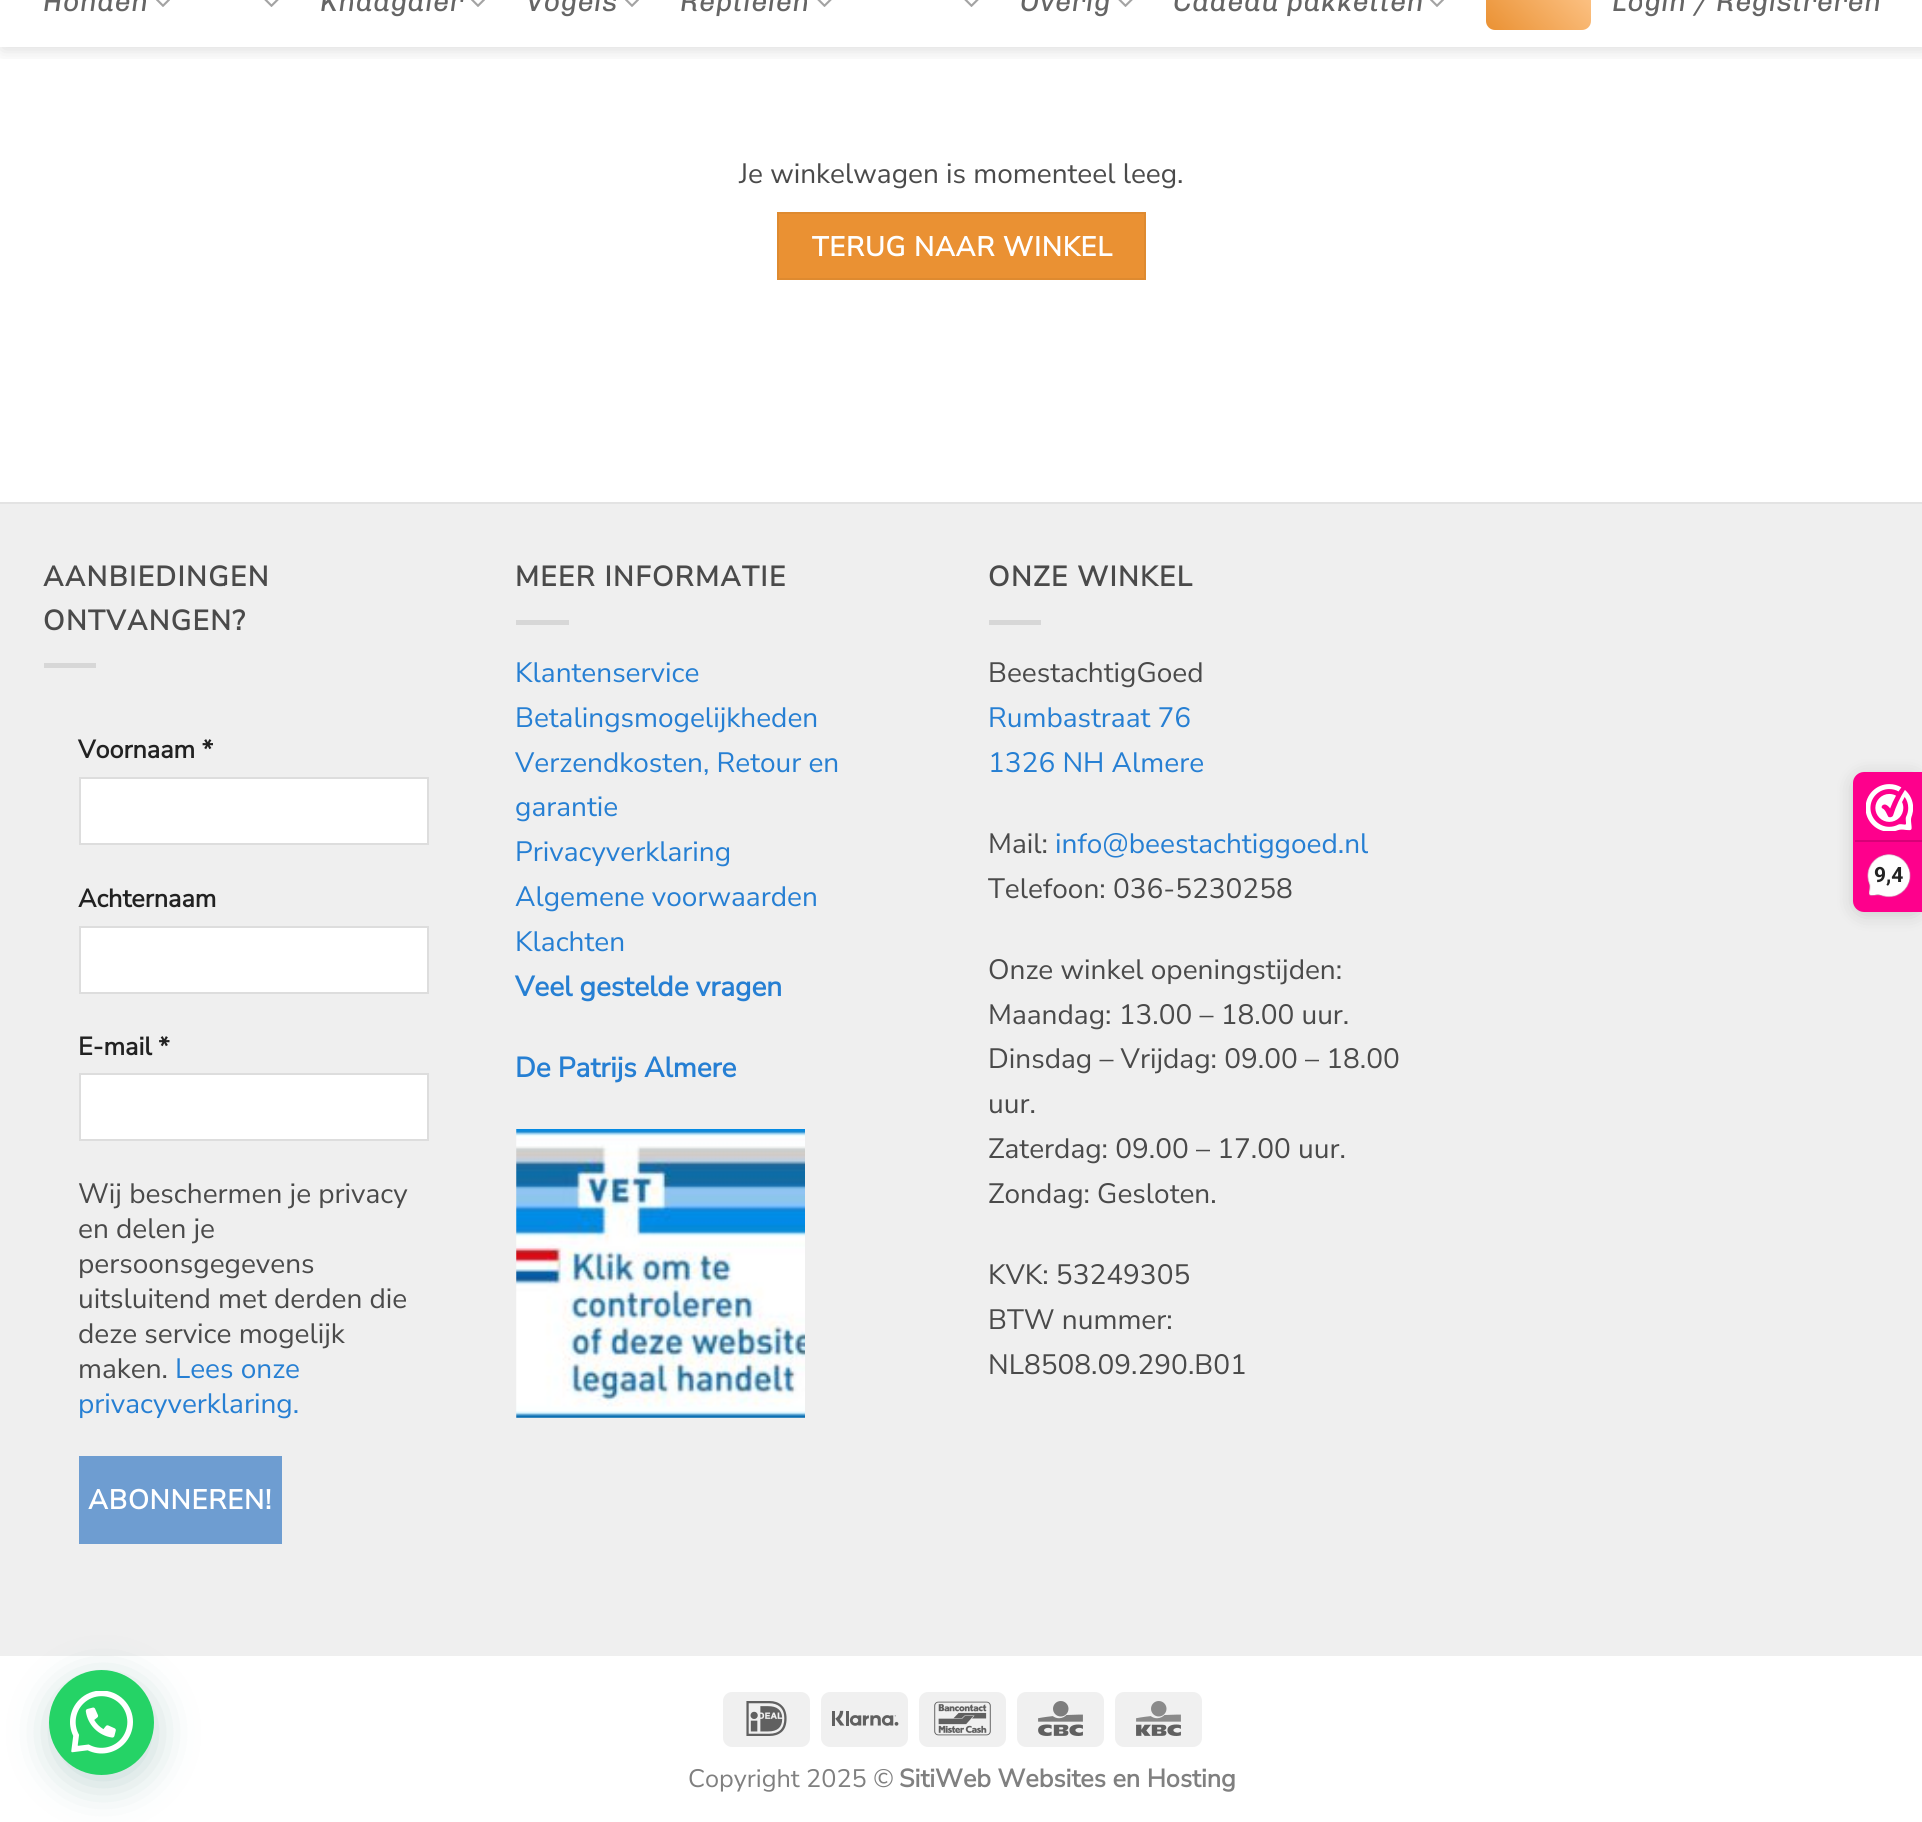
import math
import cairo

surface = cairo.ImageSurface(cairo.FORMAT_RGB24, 1922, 1822)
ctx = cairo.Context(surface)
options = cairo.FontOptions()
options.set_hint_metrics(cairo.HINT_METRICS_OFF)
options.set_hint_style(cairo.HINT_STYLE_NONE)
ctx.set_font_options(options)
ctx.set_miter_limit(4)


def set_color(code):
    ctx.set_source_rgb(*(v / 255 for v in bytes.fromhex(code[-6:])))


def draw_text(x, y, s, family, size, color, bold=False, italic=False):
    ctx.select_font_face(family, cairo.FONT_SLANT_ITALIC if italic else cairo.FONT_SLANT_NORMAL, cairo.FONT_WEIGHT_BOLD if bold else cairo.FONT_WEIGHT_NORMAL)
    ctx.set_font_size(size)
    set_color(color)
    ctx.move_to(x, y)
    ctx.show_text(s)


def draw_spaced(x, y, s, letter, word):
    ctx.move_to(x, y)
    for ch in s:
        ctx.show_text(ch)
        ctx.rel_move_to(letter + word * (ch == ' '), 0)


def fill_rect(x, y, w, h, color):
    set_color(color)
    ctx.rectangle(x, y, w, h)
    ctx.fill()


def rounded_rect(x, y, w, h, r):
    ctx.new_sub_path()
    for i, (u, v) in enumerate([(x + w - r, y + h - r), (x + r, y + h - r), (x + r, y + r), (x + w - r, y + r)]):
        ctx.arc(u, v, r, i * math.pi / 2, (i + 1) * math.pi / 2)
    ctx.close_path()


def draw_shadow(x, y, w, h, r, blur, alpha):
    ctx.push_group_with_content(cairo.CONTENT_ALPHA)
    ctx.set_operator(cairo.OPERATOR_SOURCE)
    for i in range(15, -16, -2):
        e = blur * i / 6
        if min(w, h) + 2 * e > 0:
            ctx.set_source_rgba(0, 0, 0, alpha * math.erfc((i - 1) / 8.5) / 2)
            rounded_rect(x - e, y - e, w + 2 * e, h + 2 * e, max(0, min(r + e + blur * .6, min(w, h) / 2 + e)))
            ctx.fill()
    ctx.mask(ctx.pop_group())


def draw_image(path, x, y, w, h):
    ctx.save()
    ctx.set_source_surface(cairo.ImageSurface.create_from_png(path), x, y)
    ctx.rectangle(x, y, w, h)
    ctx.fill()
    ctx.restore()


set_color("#ffffff")
ctx.paint()
ctx.save()
ctx.rectangle(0, 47, 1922, 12)
ctx.clip()
set_color("#000000")
draw_shadow(2, -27, 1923, 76, 0, 9, 0.15)
ctx.restore()
ctx.select_font_face("Chivo", cairo.FONT_SLANT_ITALIC)
ctx.set_font_size(28)
set_color("#656565")
draw_spaced(43, 11, "Honden", 0.6, 0)
draw_image("assets/img1.png", 156, 0, 14, 7)
draw_image("assets/img2.png", 264, 0, 15, 7)
draw_spaced(320, 11, "Knaagdier", 0.6, 0)
draw_image("assets/img1.png", 471, 0, 14, 7)
draw_spaced(526, 11, "Vogels", 0.6, 0)
draw_image("assets/img1.png", 625, 0, 14, 7)
draw_spaced(680, 11, "Reptielen", 0.6, 0)
draw_image("assets/img2.png", 817, 0, 15, 7)
draw_image("assets/img2.png", 964, 0, 15, 7)
draw_spaced(1020, 11, "Overig", 0.6, 0)
draw_image("assets/img2.png", 1118, 0, 15, 7)
draw_spaced(1173, 11, "Cadeau pakketten", 0.6, 0)
draw_image("assets/img1.png", 1430, 0, 14, 7)
gradient = cairo.LinearGradient(1498, 42, 1579, -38)
gradient.add_color_stop_rgba(0, 0.918, 0.569, 0.2, 1)
gradient.add_color_stop_rgba(1, 1, 0.788, 0.565, 1)
ctx.set_source(gradient)
rounded_rect(1486, -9, 105, 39, 9)
ctx.fill()
set_color("#656565")
draw_spaced(1612, 11, "Login / Registreren", 0.6, 0)
draw_text(739, 183, "Je winkelwagen is momenteel leeg.", "Nunito Sans ExtraLight", 28, "#4a4a4a")
set_color("#ea9133")
ctx.rectangle(778, 213, 367, 66)
ctx.fill_preserve()
set_color("#de8a30")
ctx.stroke()
ctx.select_font_face("Nunito Sans", cairo.FONT_SLANT_NORMAL, cairo.FONT_WEIGHT_BOLD)
ctx.set_font_size(27.25)
set_color("#ffffff")
draw_spaced(812, 256, "TERUG NAAR WINKEL", 0.8, 0)
fill_rect(0, 504, 1922, 1152, "#efefef")
fill_rect(0, 502, 1922, 2, "#e3e3e3")
ctx.set_font_size(28)
set_color("#4a4a4a")
draw_spaced(43, 586, "AANBIEDINGEN", 1.4, 0)
draw_spaced(43, 630, "ONTVANGEN?", 1.4, 0)
fill_rect(44, 663, 52, 5, "#d7d7d7")
draw_text(78, 758, "Voornaam *", "Nunito Sans", 25.25, "#222222", bold=True)
set_color("#ffffff")
ctx.rectangle(80, 778, 348, 66)
ctx.fill_preserve()
set_color("#dddddd")
ctx.stroke()
draw_text(78, 907, "Achternaam", "Nunito Sans", 25.25, "#222222", bold=True)
set_color("#ffffff")
ctx.rectangle(80, 927, 348, 66)
ctx.fill_preserve()
set_color("#dddddd")
ctx.stroke()
draw_text(78, 1055, "E-mail *", "Nunito Sans", 25.25, "#222222", bold=True)
set_color("#ffffff")
ctx.rectangle(80, 1074, 348, 66)
ctx.fill_preserve()
set_color("#dddddd")
ctx.stroke()
draw_text(78, 1203, "Wij beschermen je privacy", "Nunito Sans ExtraLight", 28, "#4a4a4a")
draw_text(78, 1238, "en delen je", "Nunito Sans ExtraLight", 28, "#4a4a4a")
draw_text(78, 1273, "persoonsgegevens", "Nunito Sans ExtraLight", 28, "#4a4a4a")
draw_text(78, 1308, "uitsluitend met derden die", "Nunito Sans ExtraLight", 28, "#4a4a4a")
draw_text(78, 1343, "deze service mogelijk", "Nunito Sans ExtraLight", 28, "#4a4a4a")
draw_text(78, 1378, "maken.", "Nunito Sans ExtraLight", 28, "#4a4a4a")
draw_text(175, 1378, "Lees onze", "Nunito Sans ExtraLight", 28, "#267fd3")
draw_text(78, 1413, "privacyverklaring.", "Nunito Sans ExtraLight", 28, "#267fd3")
fill_rect(79, 1456, 203, 88, "#6e9dd1")
ctx.select_font_face("Nunito Sans", cairo.FONT_SLANT_NORMAL, cairo.FONT_WEIGHT_BOLD)
ctx.set_font_size(27.25)
set_color("#ffffff")
draw_spaced(88, 1509, "ABONNEREN!", 0.8, 0)
ctx.set_font_size(28)
set_color("#4a4a4a")
draw_spaced(515, 586, "MEER INFORMATIE", 1.4, 0)
fill_rect(516, 620, 53, 5, "#d7d7d7")
draw_text(515, 682, "Klantenservice", "Nunito Sans ExtraLight", 28, "#267fd3")
draw_text(515, 727, "Betalingsmogelijkheden", "Nunito Sans ExtraLight", 28, "#267fd3")
draw_text(515, 772, "Verzendkosten, Retour en", "Nunito Sans ExtraLight", 28, "#267fd3")
draw_text(515, 816, "garantie", "Nunito Sans ExtraLight", 28, "#267fd3")
draw_text(515, 861, "Privacyverklaring", "Nunito Sans ExtraLight", 28, "#267fd3")
draw_text(515, 906, "Algemene voorwaarden", "Nunito Sans ExtraLight", 28, "#267fd3")
draw_text(515, 951, "Klachten", "Nunito Sans ExtraLight", 28, "#267fd3")
draw_text(515, 996, "Veel gestelde vragen", "Nunito Sans", 28, "#267fd3", bold=True)
draw_text(515, 1077, "De Patrijs Almere", "Nunito Sans", 28, "#267fd3", bold=True)
draw_image("assets/img3.png", 516, 1129, 289, 289)
set_color("#4a4a4a")
draw_spaced(988, 586, "ONZE WINKEL", 1.4, 0)
fill_rect(989, 620, 52, 5, "#d7d7d7")
draw_text(988, 682, "BeestachtigGoed", "Nunito Sans ExtraLight", 28, "#4a4a4a")
draw_text(988, 727, "Rumbastraat 76", "Nunito Sans ExtraLight", 28, "#267fd3")
draw_text(988, 772, "1326 NH Almere", "Nunito Sans ExtraLight", 28, "#267fd3")
draw_text(988, 853, "Mail:", "Nunito Sans ExtraLight", 28, "#4a4a4a")
draw_text(1055, 853, "info@beestachtiggoed.nl", "Nunito Sans ExtraLight", 28, "#267fd3")
draw_text(988, 898, "Telefoon: 036-5230258", "Nunito Sans ExtraLight", 28, "#4a4a4a")
draw_text(988, 979, "Onze winkel openingstijden:", "Nunito Sans ExtraLight", 28, "#4a4a4a")
draw_text(988, 1024, "Maandag: 13.00 – 18.00 uur.", "Nunito Sans ExtraLight", 28, "#4a4a4a")
draw_text(988, 1068, "Dinsdag – Vrijdag: 09.00 – 18.00", "Nunito Sans ExtraLight", 28, "#4a4a4a")
draw_text(988, 1113, "uur.", "Nunito Sans ExtraLight", 28, "#4a4a4a")
draw_text(988, 1158, "Zaterdag: 09.00 – 17.00 uur.", "Nunito Sans ExtraLight", 28, "#4a4a4a")
draw_text(988, 1203, "Zondag: Gesloten.", "Nunito Sans ExtraLight", 28, "#4a4a4a")
draw_text(988, 1284, "KVK: 53249305", "Nunito Sans ExtraLight", 28, "#4a4a4a")
draw_text(988, 1329, "BTW nummer:", "Nunito Sans ExtraLight", 28, "#4a4a4a")
draw_text(988, 1374, "NL8508.09.290.B01", "Nunito Sans ExtraLight", 28, "#4a4a4a")
set_color("#f0f0f0")
rounded_rect(723, 1692, 87, 55, 9)
ctx.fill()
draw_image("assets/img4.png", 746, 1701, 41, 35)
rounded_rect(821, 1692, 87, 55, 9)
ctx.fill()
draw_image("assets/img5.png", 832, 1710, 67, 16)
rounded_rect(919, 1692, 87, 55, 9)
ctx.fill()
draw_image("assets/img6.png", 934, 1701, 57, 35)
rounded_rect(1017, 1692, 87, 55, 9)
ctx.fill()
draw_image("assets/img7.png", 1038, 1701, 45, 35)
rounded_rect(1115, 1692, 87, 55, 9)
ctx.fill()
draw_image("assets/img8.png", 1136, 1701, 45, 35)
draw_text(688, 1787, "Copyright 2025 ©", "Nunito Sans ExtraLight", 25.25, "#808080")
draw_text(899, 1787, "SitiWeb Websites en Hosting", "Nunito Sans", 25.25, "#808080", bold=True)
set_color("#000000")
draw_shadow(1853, 775, 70, 140, 11, 9, 0.15)
set_color("#fe008c")
ctx.new_path()
ctx.move_to(1864, 772)
ctx.line_to(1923, 772)
ctx.line_to(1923, 912)
ctx.line_to(1864, 912)
ctx.curve_to(1858, 912, 1853, 907, 1853, 901)
ctx.line_to(1853, 783)
ctx.curve_to(1853, 777, 1858, 772, 1864, 772)
ctx.close_path()
ctx.fill()
draw_image("assets/img9.png", 1866, 784, 47, 47)
fill_rect(1855, 840, 67, 2, "#d80077")
draw_image("assets/img10.png", 1867, 854, 44, 44)
draw_text(1874, 882, "9,4", "Roboto", 21, "#222222", bold=True)
set_color("#075e54")
draw_shadow(51, 1680, 105, 105, 52.5, 21, 0.24)
set_color("#25d366")
ctx.arc(101.5, 1722.5, 52.5, 0, 2 * math.pi)
ctx.fill()
draw_image("assets/img11.png", 70, 1691, 63, 63)
surface.write_to_png("output.png")
